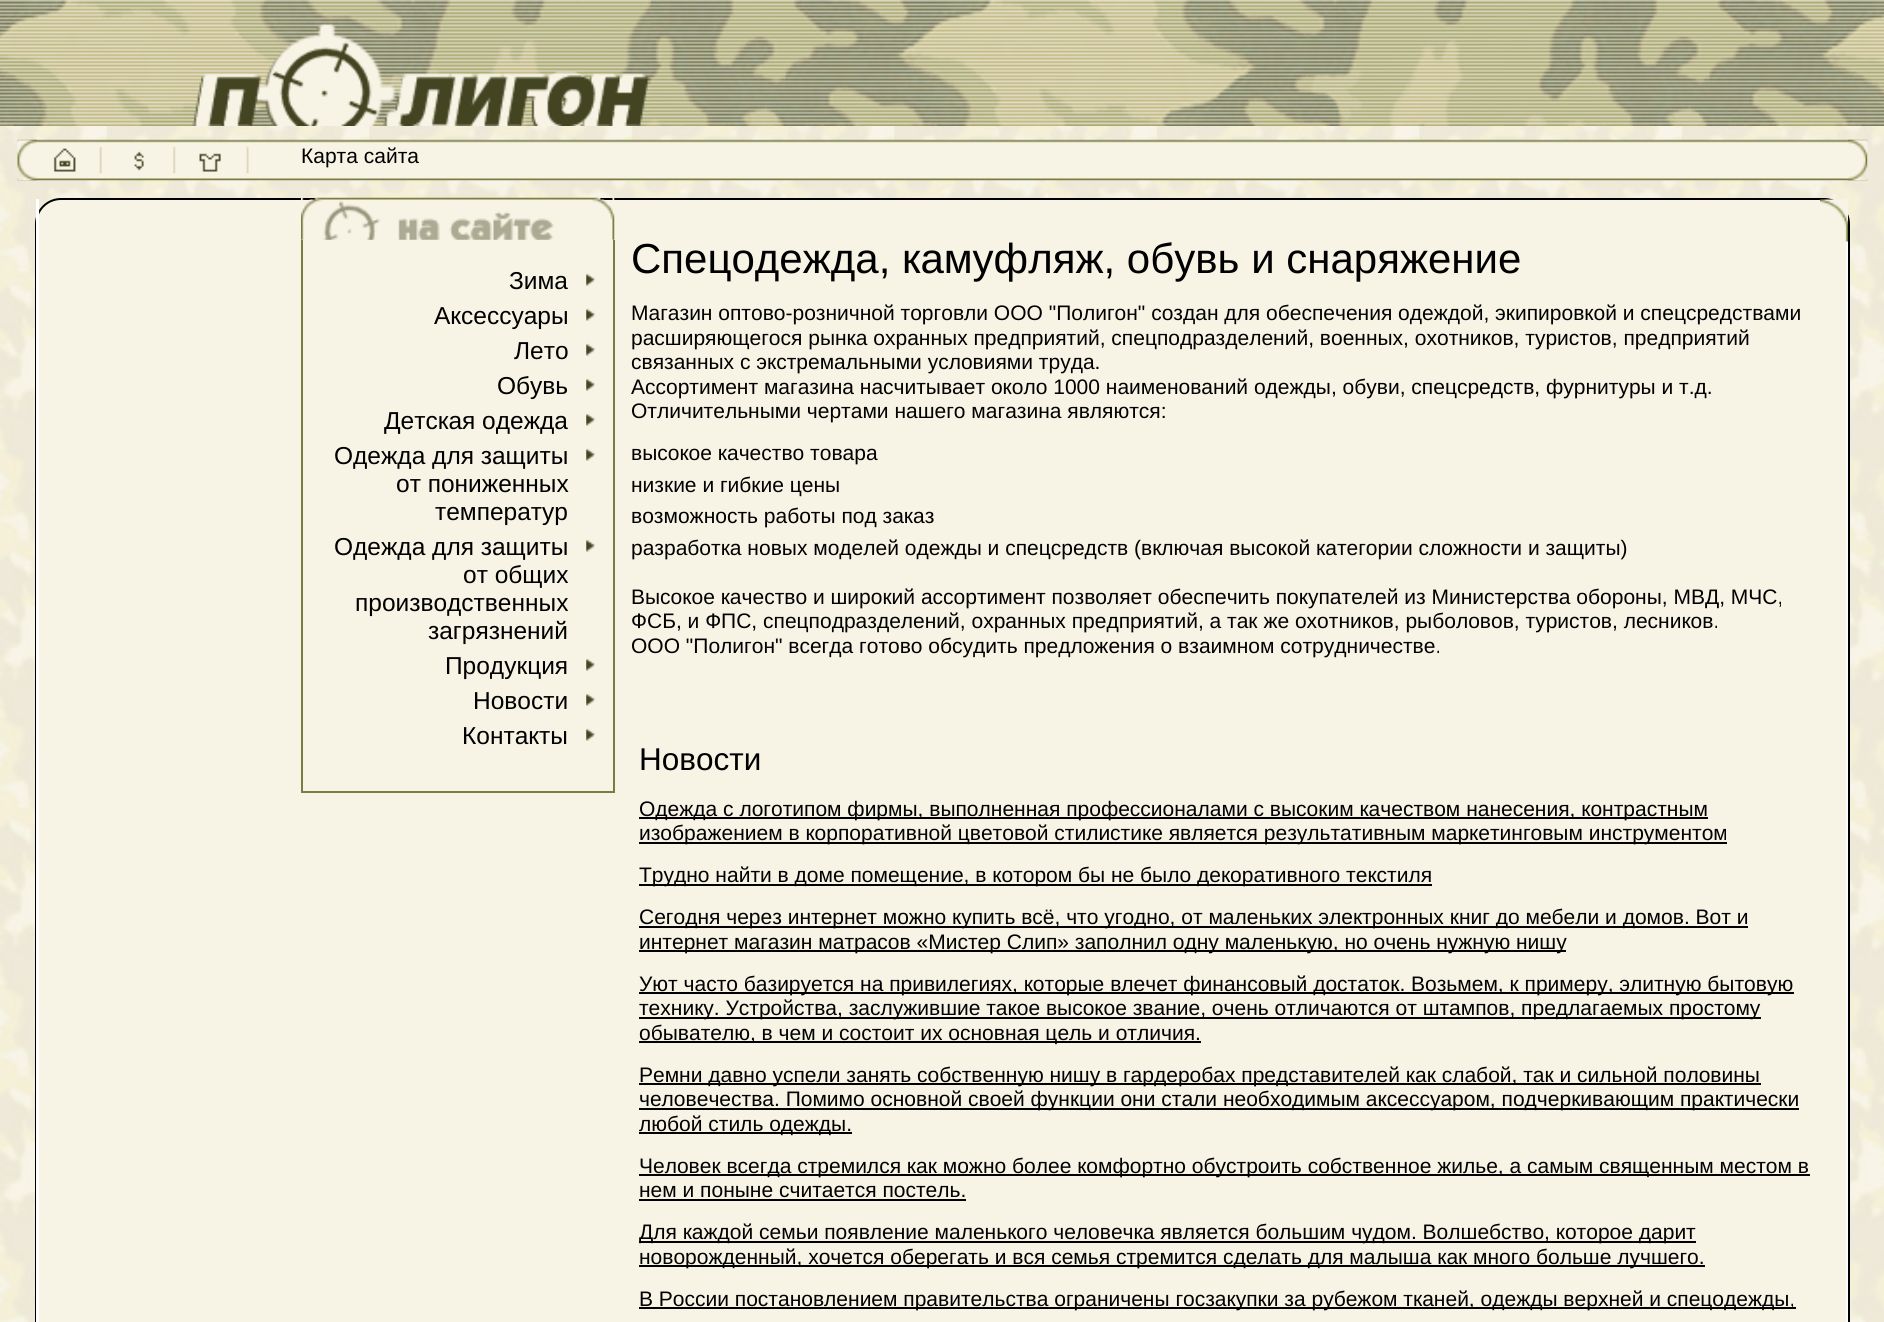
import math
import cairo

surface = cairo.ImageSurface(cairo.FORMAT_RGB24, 1884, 1322)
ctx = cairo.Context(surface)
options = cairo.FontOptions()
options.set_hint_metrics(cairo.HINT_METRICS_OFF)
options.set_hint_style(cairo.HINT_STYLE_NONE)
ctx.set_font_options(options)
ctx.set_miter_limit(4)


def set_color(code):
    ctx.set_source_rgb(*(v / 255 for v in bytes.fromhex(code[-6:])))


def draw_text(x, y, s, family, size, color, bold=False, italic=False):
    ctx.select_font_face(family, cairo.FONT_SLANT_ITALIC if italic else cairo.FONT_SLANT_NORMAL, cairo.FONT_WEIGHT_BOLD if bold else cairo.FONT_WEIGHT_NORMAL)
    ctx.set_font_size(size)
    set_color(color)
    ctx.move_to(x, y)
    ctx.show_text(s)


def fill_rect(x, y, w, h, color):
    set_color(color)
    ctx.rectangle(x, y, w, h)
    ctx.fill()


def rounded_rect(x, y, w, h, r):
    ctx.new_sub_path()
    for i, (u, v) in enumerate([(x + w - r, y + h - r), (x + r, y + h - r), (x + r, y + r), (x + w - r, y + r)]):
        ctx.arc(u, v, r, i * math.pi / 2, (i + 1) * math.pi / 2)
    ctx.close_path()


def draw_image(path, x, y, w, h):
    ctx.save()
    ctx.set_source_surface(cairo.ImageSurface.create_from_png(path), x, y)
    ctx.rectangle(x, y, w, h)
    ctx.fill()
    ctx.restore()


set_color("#ffffff")
ctx.paint()
draw_image("assets/img1.png", 0, 126, 1884, 1196)
draw_image("assets/img2.png", 0, 0, 1884, 126)
draw_image("assets/img3.png", 192, 0, 459, 126)
draw_image("assets/img4.png", 17, 139, 1851, 42)
draw_image("assets/img5.png", 17, 139, 20, 42)
draw_image("assets/img6.png", 1848, 139, 20, 42)
draw_image("assets/img7.png", 53, 148, 23, 24)
draw_image("assets/img8.png", 99, 146, 3, 28)
draw_image("assets/img9.png", 134, 151, 10, 20)
draw_image("assets/img10.png", 173, 146, 3, 28)
draw_image("assets/img11.png", 199, 153, 22, 19)
draw_image("assets/img12.png", 246, 146, 3, 28)
draw_text(301, 163, "Карта сайта", "Liberation Sans", 21, "#000000")
set_color("#f7f3e5")
rounded_rect(36, 199, 1813, 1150, 25)
ctx.fill_preserve()
set_color("#000000")
ctx.stroke()
draw_image("assets/img13.png", 301, 197, 314, 43)
fill_rect(613, 240, 2, 553, "#797d41")
fill_rect(301, 791, 313, 2, "#797d41")
fill_rect(301, 240, 2, 553, "#797d41")
draw_image("assets/img14.png", 586, 273, 9, 13)
draw_text(509, 289, "Зима", "Liberation Sans", 24.5, "#000000")
draw_image("assets/img14.png", 586, 308, 9, 13)
draw_text(434, 324, "Аксессуары", "Liberation Sans", 24.5, "#000000")
draw_image("assets/img14.png", 586, 343, 9, 13)
draw_text(514, 359, "Лето", "Liberation Sans", 24.5, "#000000")
draw_image("assets/img14.png", 586, 378, 9, 13)
draw_text(497, 394, "Обувь", "Liberation Sans", 24.5, "#000000")
draw_image("assets/img14.png", 586, 413, 9, 13)
draw_text(384, 429, "Детская одежда", "Liberation Sans", 24.5, "#000000")
draw_image("assets/img14.png", 586, 448, 9, 13)
draw_text(334, 464, "Одежда для защиты", "Liberation Sans", 24.5, "#000000")
draw_text(396, 492, "от пониженных", "Liberation Sans", 24.5, "#000000")
draw_text(435, 520, "температур", "Liberation Sans", 24.5, "#000000")
draw_image("assets/img14.png", 586, 539, 9, 13)
draw_text(334, 555, "Одежда для защиты", "Liberation Sans", 24.5, "#000000")
draw_text(463, 583, "от общих", "Liberation Sans", 24.5, "#000000")
draw_text(355, 611, "производственных", "Liberation Sans", 24.5, "#000000")
draw_text(428, 639, "загрязнений", "Liberation Sans", 24.5, "#000000")
draw_image("assets/img14.png", 586, 658, 9, 13)
draw_text(445, 674, "Продукция", "Liberation Sans", 24.5, "#000000")
draw_image("assets/img14.png", 586, 693, 9, 13)
draw_text(473, 709, "Новости", "Liberation Sans", 24.5, "#000000")
draw_image("assets/img14.png", 586, 728, 9, 13)
draw_text(462, 744, "Контакты", "Liberation Sans", 24.5, "#000000")
draw_image("assets/img15.png", 1846, 199, 2, 1123)
fill_rect(36, 199, 3, 1123, "#ffffff")
draw_image("assets/img16.png", 1820, 199, 28, 43)
draw_text(631, 273, "Спецодежда, камуфляж, обувь и снаряжение", "Liberation Sans", 42, "#000000")
draw_text(631, 320, "Магазин оптово-розничной торговли ООО \"Полигон\" создан для обеспечения одеждой, экипировкой и спецсредствами", "Liberation Sans", 21, "#000000")
draw_text(631, 345, "расширяющегося рынка охранных предприятий, спецподразделений, военных, охотников, туристов, предприятий", "Liberation Sans", 21, "#000000")
draw_text(631, 369, "связанных с экстремальными условиями труда.", "Liberation Sans", 21, "#000000")
draw_text(631, 394, "Ассортимент магазина насчитывает около 1000 наименований одежды, обуви, спецсредств, фурнитуры и т.д.", "Liberation Sans", 21, "#000000")
draw_text(631, 418, "Отличительными чертами нашего магазина являются:", "Liberation Sans", 21, "#000000")
draw_text(631, 460, "высокое качество товара", "Liberation Sans", 21, "#000000")
draw_text(631, 492, "низкие и гибкие цены", "Liberation Sans", 21, "#000000")
draw_text(631, 523, "возможность работы под заказ", "Liberation Sans", 21, "#000000")
draw_text(631, 555, "разработка новых моделей одежды и спецсредств (включая высокой категории сложности и защиты)", "Liberation Sans", 21, "#000000")
draw_text(631, 604, "Высокое качество и широкий ассортимент позволяет обеспечить покупателей из Министерства обороны, МВД, МЧС,", "Liberation Sans", 21, "#000000")
draw_text(631, 628, "ФСБ, и ФПС, спецподразделений, охранных предприятий, а так же охотников, рыболовов, туристов, лесников.", "Liberation Sans", 21, "#000000")
draw_text(631, 653, "ООО \"Полигон\" всегда готово обсудить предложения о взаимном сотрудничестве.", "Liberation Sans", 21, "#000000")
draw_text(639, 770, "Новости", "Liberation Sans", 31.5, "#000000")
fill_rect(639, 817, 1069, 2, "#000000")
draw_text(639, 816, "Одежда с логотипом фирмы, выполненная профессионалами с высоким качеством нанесения, контрастным", "Liberation Sans", 21, "#000000")
fill_rect(639, 842, 1088, 2, "#000000")
draw_text(639, 840, "изображением в корпоративной цветовой стилистике является результативным маркетинговым инструментом", "Liberation Sans", 21, "#000000")
fill_rect(639, 884, 793, 2, "#000000")
draw_text(639, 882, "Трудно найти в доме помещение, в котором бы не было декоративного текстиля", "Liberation Sans", 21, "#000000")
fill_rect(639, 926, 1109, 2, "#000000")
draw_text(639, 924, "Сегодня через интернет можно купить всё, что угодно, от маленьких электронных книг до мебели и домов. Вот и", "Liberation Sans", 21, "#000000")
fill_rect(639, 950, 927, 2, "#000000")
draw_text(639, 949, "интернет магазин матрасов «Мистер Слип» заполнил одну маленькую, но очень нужную нишу", "Liberation Sans", 21, "#000000")
fill_rect(639, 992, 1155, 2, "#000000")
draw_text(639, 991, "Уют часто базируется на привилегиях, которые влечет финансовый достаток. Возьмем, к примеру, элитную бытовую", "Liberation Sans", 21, "#000000")
fill_rect(639, 1017, 1122, 2, "#000000")
draw_text(639, 1015, "технику. Устройства, заслужившие такое высокое звание, очень отличаются от штампов, предлагаемых простому", "Liberation Sans", 21, "#000000")
fill_rect(639, 1041, 562, 2, "#000000")
draw_text(639, 1040, "обывателю, в чем и состоит их основная цель и отличия.", "Liberation Sans", 21, "#000000")
fill_rect(639, 1083, 1122, 2, "#000000")
draw_text(639, 1082, "Ремни давно успели занять собственную нишу в гардеробах представителей как слабой, так и сильной половины", "Liberation Sans", 21, "#000000")
fill_rect(639, 1108, 1160, 2, "#000000")
draw_text(639, 1106, "человечества. Помимо основной своей функции они стали необходимым аксессуаром, подчеркивающим практически", "Liberation Sans", 21, "#000000")
fill_rect(639, 1132, 213, 2, "#000000")
draw_text(639, 1131, "любой стиль одежды.", "Liberation Sans", 21, "#000000")
fill_rect(639, 1174, 1171, 2, "#000000")
draw_text(639, 1173, "Человек всегда стремился как можно более комфортно обустроить собственное жилье, а самым священным местом в", "Liberation Sans", 21, "#000000")
draw_text(639, 1197, "нем и поныне считается постель.", "Liberation Sans", 21, "#000000")
fill_rect(639, 1199, 327, 2, "#000000")
fill_rect(639, 1241, 1057, 2, "#000000")
draw_text(639, 1239, "Для каждой семьи появление маленького человечка является большим чудом. Волшебство, которое дарит", "Liberation Sans", 21, "#000000")
fill_rect(639, 1265, 1066, 2, "#000000")
draw_text(639, 1264, "новорожденный, хочется оберегать и вся семья стремится сделать для малыша как много больше лучшего.", "Liberation Sans", 21, "#000000")
fill_rect(639, 1307, 1157, 2, "#000000")
draw_text(639, 1306, "В России постановлением правительства ограничены госзакупки за рубежом тканей, одежды верхней и спецодежды,", "Liberation Sans", 21, "#000000")
surface.write_to_png("output.png")
